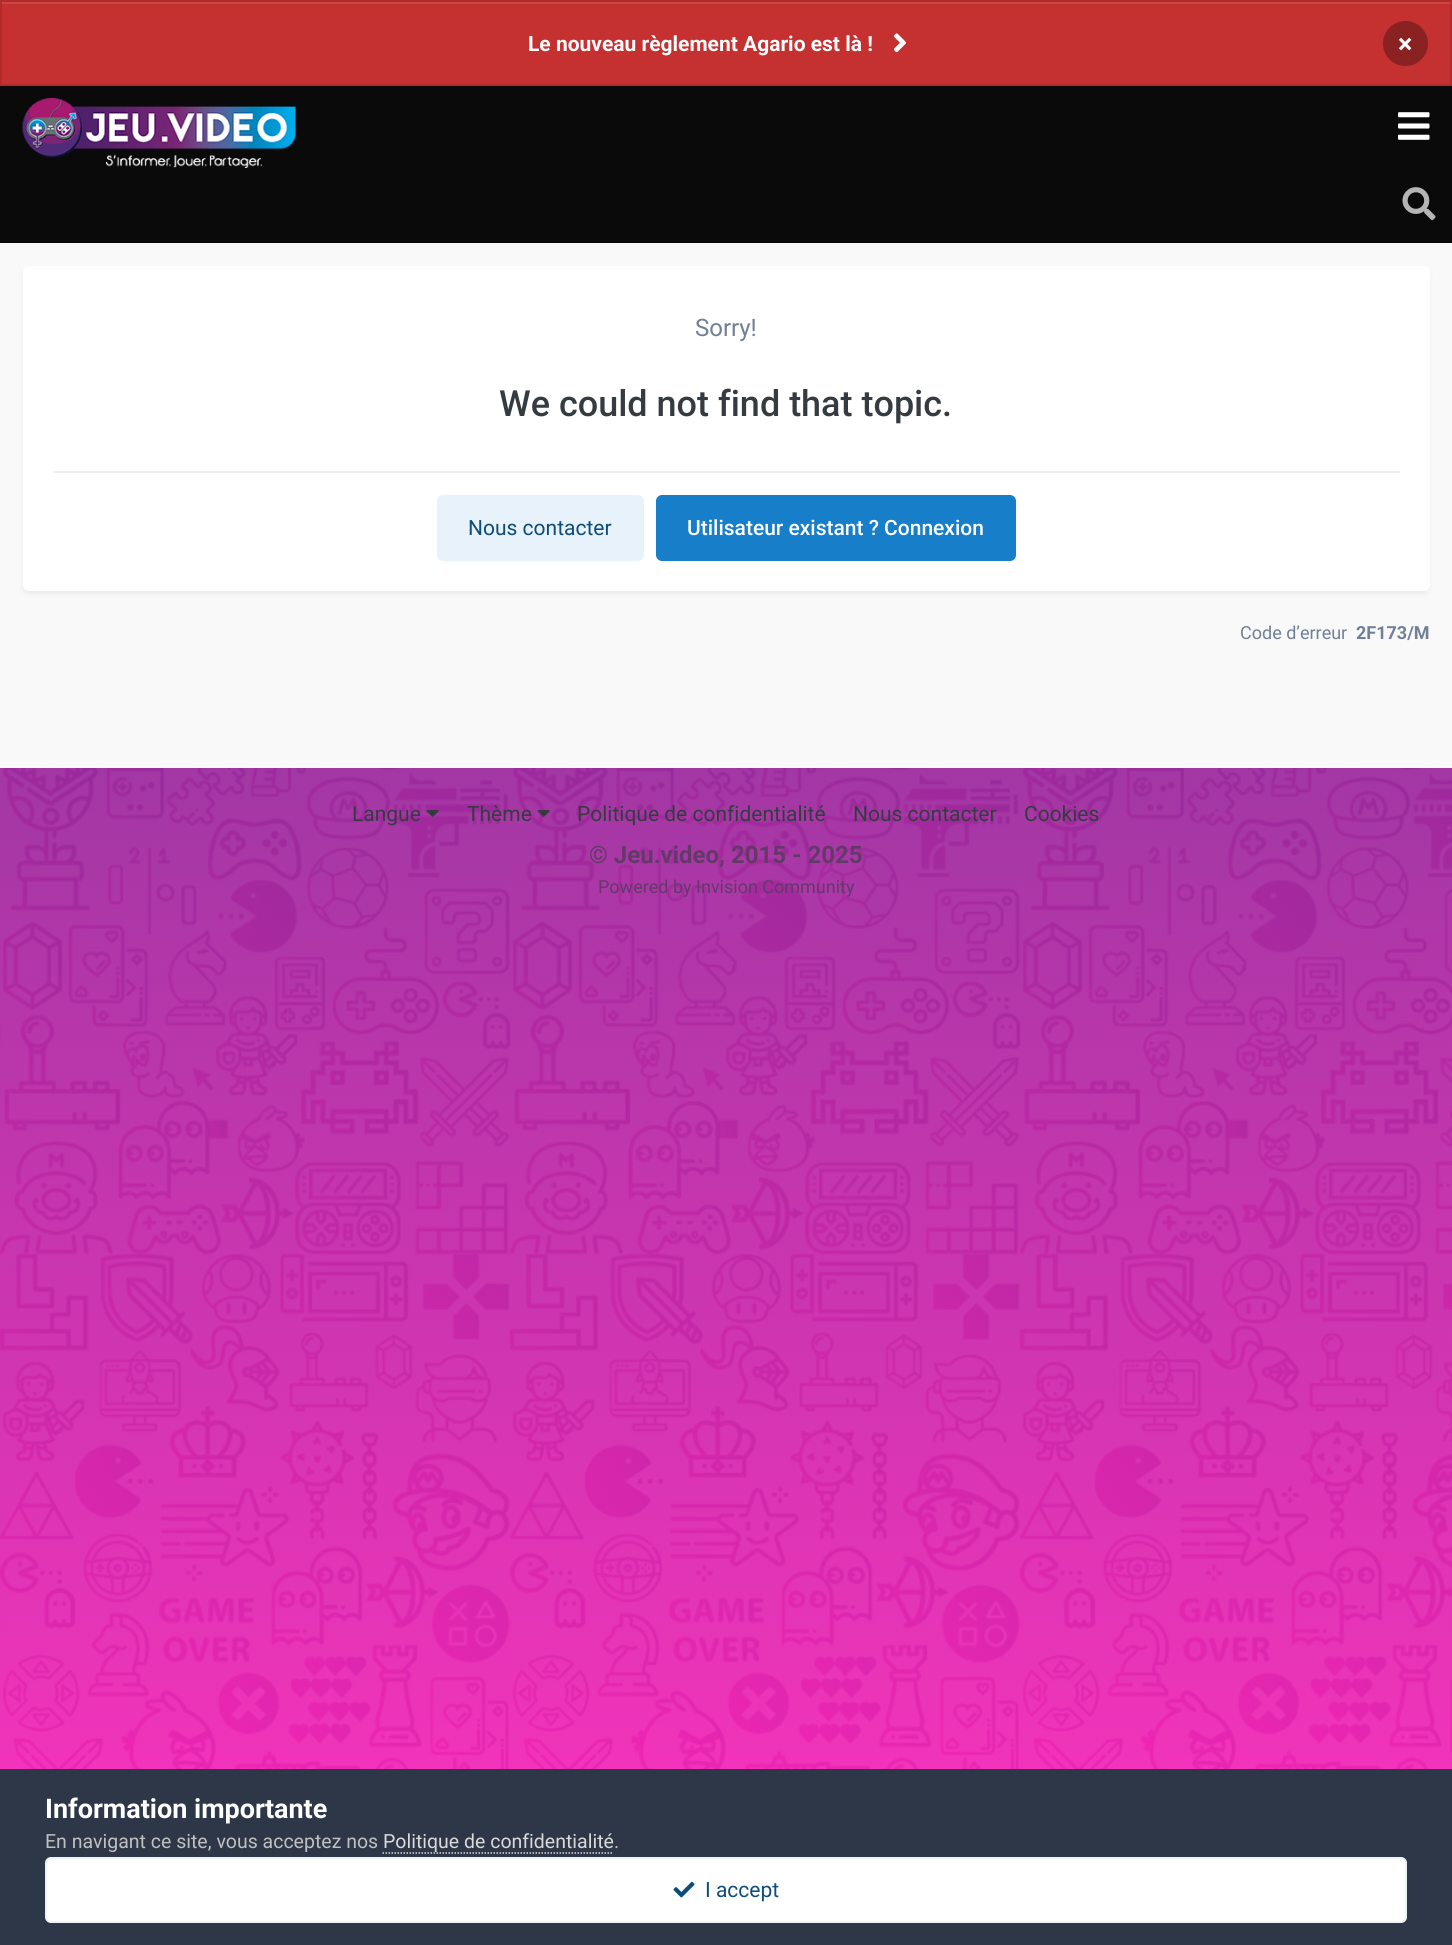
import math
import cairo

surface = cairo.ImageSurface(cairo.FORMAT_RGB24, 1452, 1945)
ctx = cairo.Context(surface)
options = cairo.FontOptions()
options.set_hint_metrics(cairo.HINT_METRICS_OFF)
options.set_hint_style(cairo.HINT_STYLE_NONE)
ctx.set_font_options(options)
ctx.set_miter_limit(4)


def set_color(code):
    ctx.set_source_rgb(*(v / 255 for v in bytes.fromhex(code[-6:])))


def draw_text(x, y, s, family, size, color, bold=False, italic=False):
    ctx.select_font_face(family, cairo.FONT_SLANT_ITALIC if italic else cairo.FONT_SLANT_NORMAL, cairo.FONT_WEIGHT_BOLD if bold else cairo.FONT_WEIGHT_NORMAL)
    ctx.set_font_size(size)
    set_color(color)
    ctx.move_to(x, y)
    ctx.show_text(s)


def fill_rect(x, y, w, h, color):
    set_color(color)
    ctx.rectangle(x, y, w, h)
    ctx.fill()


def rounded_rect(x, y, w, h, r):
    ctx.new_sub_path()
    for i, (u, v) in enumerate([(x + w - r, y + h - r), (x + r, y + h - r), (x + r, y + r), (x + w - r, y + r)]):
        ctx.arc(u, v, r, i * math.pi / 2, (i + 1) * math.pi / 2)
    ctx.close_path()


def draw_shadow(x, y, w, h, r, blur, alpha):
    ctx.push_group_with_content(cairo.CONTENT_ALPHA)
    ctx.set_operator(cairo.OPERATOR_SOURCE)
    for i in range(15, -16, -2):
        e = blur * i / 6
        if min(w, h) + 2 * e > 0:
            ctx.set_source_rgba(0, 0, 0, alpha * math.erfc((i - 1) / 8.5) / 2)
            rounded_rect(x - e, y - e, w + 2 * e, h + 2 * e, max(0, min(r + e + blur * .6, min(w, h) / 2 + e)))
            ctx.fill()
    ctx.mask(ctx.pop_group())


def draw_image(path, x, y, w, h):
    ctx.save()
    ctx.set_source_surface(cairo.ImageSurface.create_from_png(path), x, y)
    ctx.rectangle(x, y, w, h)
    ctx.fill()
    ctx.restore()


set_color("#ffffff")
ctx.paint()
draw_image("assets/img1.png", 0, 768, 1452, 1001)
fill_rect(0, 0, 1452, 86, "#c53030")
fill_rect(2, 2, 1449, 2, "#cb4545")
ctx.rectangle(1, 1, 1450, 84)
ctx.set_source_rgba(0, 0, 0, 0.1)
ctx.stroke()
draw_text(528, 51, "Le nouveau règlement Agario est là !", "Roboto", 21, "#ffffff", bold=True)
draw_image("assets/img2.png", 894, 33, 12, 20)
set_color("#8a2222")
ctx.arc(1405.5, 43.5, 22.5, 0, 2 * math.pi)
ctx.fill()
draw_text(1398, 53, "×", "Roboto", 27, "#ffffff", bold=True)
fill_rect(0, 86, 1452, 157, "#0a0a0a")
draw_image("assets/img3.png", 22, 98, 274, 70)
draw_image("assets/img4.png", 1398, 112, 32, 28)
draw_image("assets/img5.png", 1402, 187, 34, 34)
fill_rect(0, 243, 1452, 525, "#f9f9f9")
set_color("#2d3748")
draw_shadow(24, 270, 1404, 323, 5, 3, 0.1)
set_color("#ffffff")
rounded_rect(23, 266, 1407, 325, 6)
ctx.fill()
draw_text(695, 336, "Sorry!", "Roboto", 24, "#718096")
draw_text(499, 416, "We could not find that topic.", "Roboto Medium", 36, "#353c41")
fill_rect(53, 471, 1347, 2, "#efeff0")
set_color("#e8f2fa")
rounded_rect(437, 495, 207, 66, 6)
ctx.fill()
draw_text(468, 535, "Nous contacter", "Roboto", 21, "#0e4c79")
set_color("#177ec9")
rounded_rect(656, 495, 360, 66, 6)
ctx.fill()
draw_text(687, 535, "Utilisateur existant ? Connexion", "Roboto Medium", 21, "#ffffff")
draw_text(1240, 639, "Code d’erreur", "Roboto", 18, "#718096")
draw_text(1356, 639, "2F173/M", "Roboto", 18, "#718096", bold=True)
draw_text(352, 821, "Langue", "Roboto", 21, "#353c41")
draw_image("assets/img6.png", 426, 810, 13, 7)
draw_text(467, 821, "Thème", "Roboto", 21, "#353c41")
draw_image("assets/img7.png", 537, 810, 13, 7)
draw_text(577, 821, "Politique de confidentialité", "Roboto", 21, "#353c41")
draw_text(853, 821, "Nous contacter", "Roboto", 21, "#353c41")
draw_text(1024, 821, "Cookies", "Roboto", 21, "#353c41")
draw_text(589, 863, "© Jeu.video, 2015 - 2025", "Roboto", 24, "#633969", bold=True)
draw_text(598, 893, "Powered by Invision Community", "Roboto", 18, "#633969")
fill_rect(0, 1769, 1452, 176, "#2d3748")
draw_text(45, 1818, "Information importante", "Roboto", 27, "#ffffff", bold=True)
draw_text(45, 1848, "En navigant ce site, vous acceptez nos", "Roboto", 19.5, "#c0c0c0")
draw_text(383, 1848, "Politique de confidentialité", "Roboto", 19.5, "#dadada")
ctx.new_path()
ctx.move_to(382.5, 1853)
ctx.line_to(613.5, 1853)
ctx.set_line_width(1.5)
ctx.set_dash([1.5, 1.5])
ctx.stroke()
draw_text(614, 1848, ".", "Roboto", 19.5, "#c0c0c0")
set_color("#ffffff")
rounded_rect(45, 1857, 1362, 66, 6)
ctx.fill()
rounded_rect(46, 1858, 1360, 64, 5)
ctx.set_source_rgba(0.055, 0.298, 0.475, 0.07)
ctx.set_line_width(2)
ctx.set_dash([])
ctx.stroke()
draw_image("assets/img8.png", 673, 1881, 22, 17)
draw_text(705, 1897, "I accept", "Roboto", 21, "#0e4c79")
surface.write_to_png("output.png")
